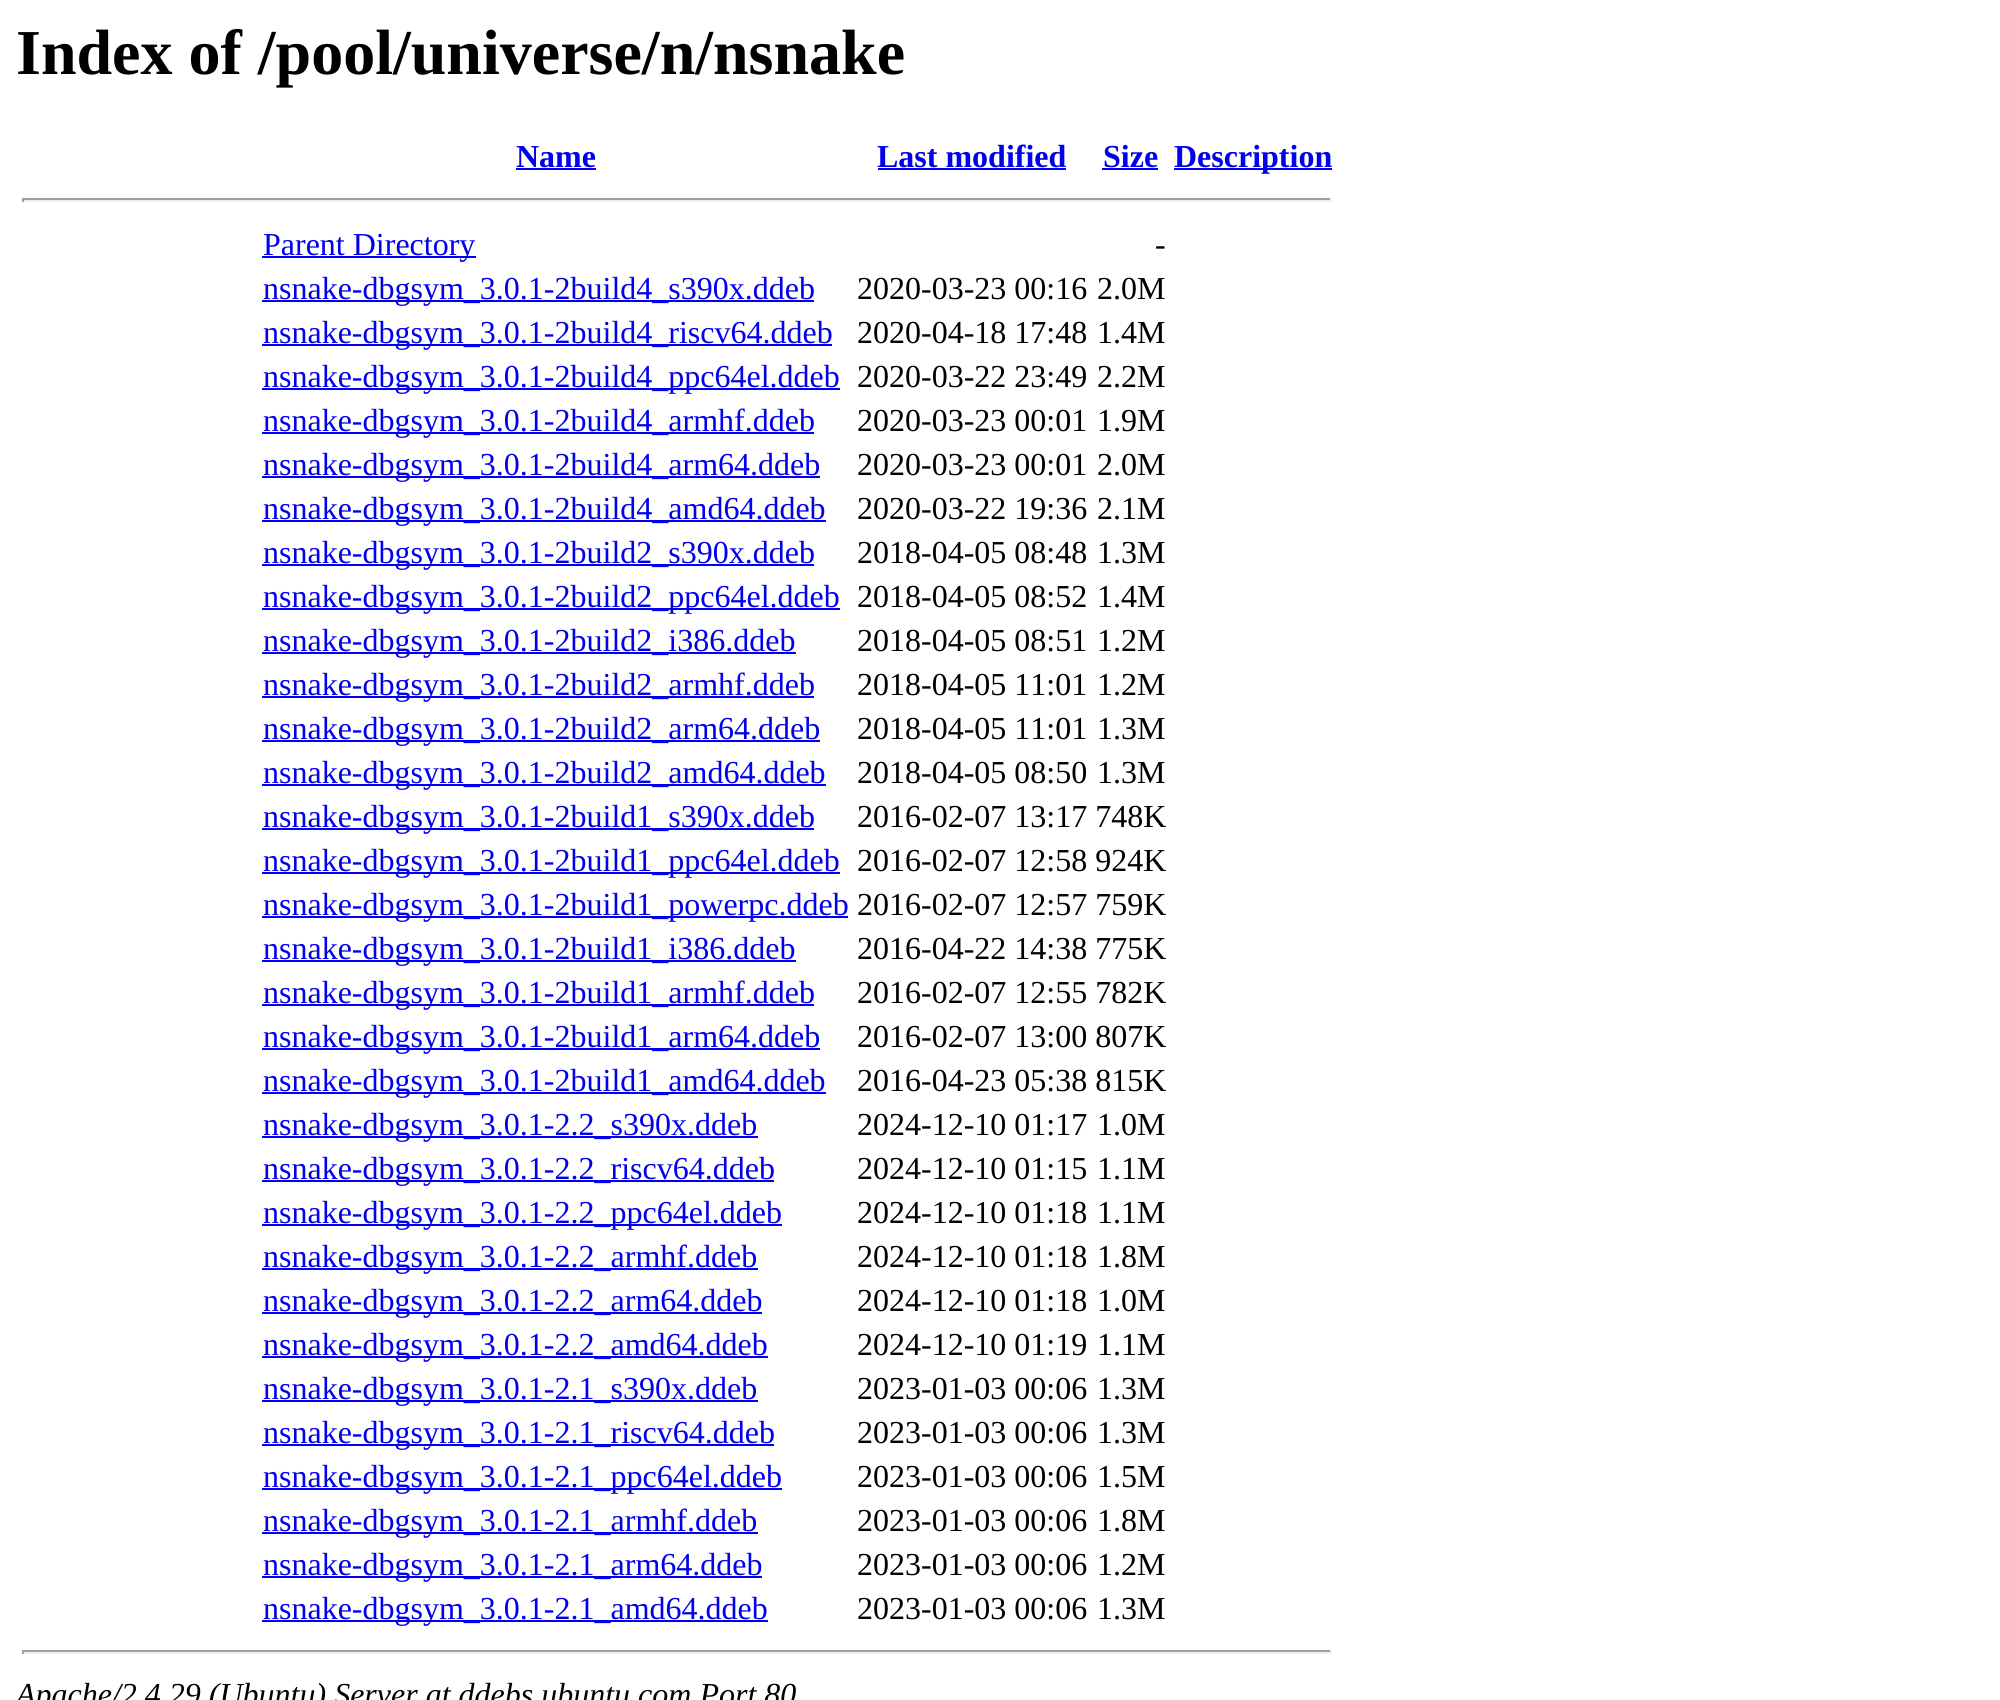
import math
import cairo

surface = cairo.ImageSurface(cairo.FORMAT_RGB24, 2000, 1700)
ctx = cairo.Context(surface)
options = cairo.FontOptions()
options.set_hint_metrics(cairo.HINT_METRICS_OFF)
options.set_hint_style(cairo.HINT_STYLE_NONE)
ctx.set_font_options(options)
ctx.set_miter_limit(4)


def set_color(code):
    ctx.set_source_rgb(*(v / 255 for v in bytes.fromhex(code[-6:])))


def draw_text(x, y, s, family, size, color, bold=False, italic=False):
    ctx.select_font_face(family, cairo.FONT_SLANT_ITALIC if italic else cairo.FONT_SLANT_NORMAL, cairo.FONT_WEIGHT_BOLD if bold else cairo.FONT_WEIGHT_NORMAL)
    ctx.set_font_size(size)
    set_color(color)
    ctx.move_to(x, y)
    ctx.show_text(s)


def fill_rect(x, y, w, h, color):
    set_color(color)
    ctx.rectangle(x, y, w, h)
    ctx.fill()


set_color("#ffffff")
ctx.paint()
draw_text(16, 74, "Index of /pool/universe/n/nsnake", "Liberation Serif", 64, "#000000", bold=True)
draw_text(516, 167, "Name", "Liberation Serif", 32, "#0000ee", bold=True)
fill_rect(516, 168, 80, 2, "#0000ee")
draw_text(877, 167, "Last modified", "Liberation Serif", 32, "#0000ee", bold=True)
fill_rect(878, 168, 188, 2, "#0000ee")
draw_text(1103, 167, "Size", "Liberation Serif", 32, "#0000ee", bold=True)
fill_rect(1102, 168, 56, 2, "#0000ee")
fill_rect(1174, 168, 158, 2, "#0000ee")
draw_text(1174, 167, "Description", "Liberation Serif", 32, "#0000ee", bold=True)
fill_rect(22, 198, 1310, 2, "#9f9f9f")
fill_rect(1330, 198, 2, 4, "#eeeeee")
fill_rect(22, 200, 1310, 2, "#eeeeee")
fill_rect(22, 198, 2, 4, "#9f9f9f")
fill_rect(262, 256, 214, 2, "#0000ee")
draw_text(263, 255, "Parent Directory", "Liberation Serif", 32, "#0000ee")
draw_text(1155, 255, "-", "Liberation Serif", 32, "#000000")
fill_rect(262, 300, 552, 2, "#0000ee")
draw_text(263, 299, "nsnake-dbgsym_3.0.1-2build4_s390x.ddeb", "Liberation Serif", 32, "#0000ee")
draw_text(857, 299, "2020-03-23 00:16", "Liberation Serif", 32, "#000000")
draw_text(1097, 299, "2.0M", "Liberation Serif", 32, "#000000")
fill_rect(262, 344, 570, 2, "#0000ee")
draw_text(263, 343, "nsnake-dbgsym_3.0.1-2build4_riscv64.ddeb", "Liberation Serif", 32, "#0000ee")
draw_text(857, 343, "2020-04-18 17:48", "Liberation Serif", 32, "#000000")
draw_text(1097, 343, "1.4M", "Liberation Serif", 32, "#000000")
fill_rect(262, 388, 578, 2, "#0000ee")
draw_text(263, 387, "nsnake-dbgsym_3.0.1-2build4_ppc64el.ddeb", "Liberation Serif", 32, "#0000ee")
draw_text(857, 387, "2020-03-22 23:49", "Liberation Serif", 32, "#000000")
draw_text(1097, 387, "2.2M", "Liberation Serif", 32, "#000000")
fill_rect(262, 432, 552, 2, "#0000ee")
draw_text(263, 431, "nsnake-dbgsym_3.0.1-2build4_armhf.ddeb", "Liberation Serif", 32, "#0000ee")
draw_text(857, 431, "2020-03-23 00:01", "Liberation Serif", 32, "#000000")
draw_text(1097, 431, "1.9M", "Liberation Serif", 32, "#000000")
fill_rect(262, 476, 558, 2, "#0000ee")
draw_text(263, 475, "nsnake-dbgsym_3.0.1-2build4_arm64.ddeb", "Liberation Serif", 32, "#0000ee")
draw_text(857, 475, "2020-03-23 00:01", "Liberation Serif", 32, "#000000")
draw_text(1097, 475, "2.0M", "Liberation Serif", 32, "#000000")
fill_rect(262, 520, 564, 2, "#0000ee")
draw_text(263, 519, "nsnake-dbgsym_3.0.1-2build4_amd64.ddeb", "Liberation Serif", 32, "#0000ee")
draw_text(857, 519, "2020-03-22 19:36", "Liberation Serif", 32, "#000000")
draw_text(1097, 519, "2.1M", "Liberation Serif", 32, "#000000")
fill_rect(262, 564, 552, 2, "#0000ee")
draw_text(263, 563, "nsnake-dbgsym_3.0.1-2build2_s390x.ddeb", "Liberation Serif", 32, "#0000ee")
draw_text(857, 563, "2018-04-05 08:48", "Liberation Serif", 32, "#000000")
draw_text(1097, 563, "1.3M", "Liberation Serif", 32, "#000000")
fill_rect(262, 608, 578, 2, "#0000ee")
draw_text(263, 607, "nsnake-dbgsym_3.0.1-2build2_ppc64el.ddeb", "Liberation Serif", 32, "#0000ee")
draw_text(857, 607, "2018-04-05 08:52", "Liberation Serif", 32, "#000000")
draw_text(1097, 607, "1.4M", "Liberation Serif", 32, "#000000")
fill_rect(262, 652, 534, 2, "#0000ee")
draw_text(263, 651, "nsnake-dbgsym_3.0.1-2build2_i386.ddeb", "Liberation Serif", 32, "#0000ee")
draw_text(857, 651, "2018-04-05 08:51", "Liberation Serif", 32, "#000000")
draw_text(1097, 651, "1.2M", "Liberation Serif", 32, "#000000")
fill_rect(262, 696, 552, 2, "#0000ee")
draw_text(263, 695, "nsnake-dbgsym_3.0.1-2build2_armhf.ddeb", "Liberation Serif", 32, "#0000ee")
draw_text(857, 695, "2018-04-05 11:01", "Liberation Serif", 32, "#000000")
draw_text(1097, 695, "1.2M", "Liberation Serif", 32, "#000000")
fill_rect(262, 740, 558, 2, "#0000ee")
draw_text(263, 739, "nsnake-dbgsym_3.0.1-2build2_arm64.ddeb", "Liberation Serif", 32, "#0000ee")
draw_text(857, 739, "2018-04-05 11:01", "Liberation Serif", 32, "#000000")
draw_text(1097, 739, "1.3M", "Liberation Serif", 32, "#000000")
fill_rect(262, 784, 564, 2, "#0000ee")
draw_text(263, 783, "nsnake-dbgsym_3.0.1-2build2_amd64.ddeb", "Liberation Serif", 32, "#0000ee")
draw_text(857, 783, "2018-04-05 08:50", "Liberation Serif", 32, "#000000")
draw_text(1097, 783, "1.3M", "Liberation Serif", 32, "#000000")
fill_rect(262, 828, 552, 2, "#0000ee")
draw_text(263, 827, "nsnake-dbgsym_3.0.1-2build1_s390x.ddeb", "Liberation Serif", 32, "#0000ee")
draw_text(857, 827, "2016-02-07 13:17 748K", "Liberation Serif", 32, "#000000")
fill_rect(262, 872, 578, 2, "#0000ee")
draw_text(263, 871, "nsnake-dbgsym_3.0.1-2build1_ppc64el.ddeb", "Liberation Serif", 32, "#0000ee")
draw_text(857, 871, "2016-02-07 12:58 924K", "Liberation Serif", 32, "#000000")
fill_rect(262, 916, 586, 2, "#0000ee")
draw_text(263, 915, "nsnake-dbgsym_3.0.1-2build1_powerpc.ddeb", "Liberation Serif", 32, "#0000ee")
draw_text(857, 915, "2016-02-07 12:57 759K", "Liberation Serif", 32, "#000000")
fill_rect(262, 960, 534, 2, "#0000ee")
draw_text(263, 959, "nsnake-dbgsym_3.0.1-2build1_i386.ddeb", "Liberation Serif", 32, "#0000ee")
draw_text(857, 959, "2016-04-22 14:38 775K", "Liberation Serif", 32, "#000000")
fill_rect(262, 1004, 552, 2, "#0000ee")
draw_text(263, 1003, "nsnake-dbgsym_3.0.1-2build1_armhf.ddeb", "Liberation Serif", 32, "#0000ee")
draw_text(857, 1003, "2016-02-07 12:55 782K", "Liberation Serif", 32, "#000000")
fill_rect(262, 1048, 558, 2, "#0000ee")
draw_text(263, 1047, "nsnake-dbgsym_3.0.1-2build1_arm64.ddeb", "Liberation Serif", 32, "#0000ee")
draw_text(857, 1047, "2016-02-07 13:00 807K", "Liberation Serif", 32, "#000000")
fill_rect(262, 1092, 564, 2, "#0000ee")
draw_text(263, 1091, "nsnake-dbgsym_3.0.1-2build1_amd64.ddeb", "Liberation Serif", 32, "#0000ee")
draw_text(857, 1091, "2016-04-23 05:38 815K", "Liberation Serif", 32, "#000000")
fill_rect(262, 1136, 496, 2, "#0000ee")
draw_text(263, 1135, "nsnake-dbgsym_3.0.1-2.2_s390x.ddeb", "Liberation Serif", 32, "#0000ee")
draw_text(857, 1135, "2024-12-10 01:17", "Liberation Serif", 32, "#000000")
draw_text(1097, 1135, "1.0M", "Liberation Serif", 32, "#000000")
fill_rect(262, 1180, 512, 2, "#0000ee")
draw_text(263, 1179, "nsnake-dbgsym_3.0.1-2.2_riscv64.ddeb", "Liberation Serif", 32, "#0000ee")
draw_text(857, 1179, "2024-12-10 01:15", "Liberation Serif", 32, "#000000")
draw_text(1097, 1179, "1.1M", "Liberation Serif", 32, "#000000")
fill_rect(262, 1224, 520, 2, "#0000ee")
draw_text(263, 1223, "nsnake-dbgsym_3.0.1-2.2_ppc64el.ddeb", "Liberation Serif", 32, "#0000ee")
draw_text(857, 1223, "2024-12-10 01:18", "Liberation Serif", 32, "#000000")
draw_text(1097, 1223, "1.1M", "Liberation Serif", 32, "#000000")
fill_rect(262, 1268, 496, 2, "#0000ee")
draw_text(263, 1267, "nsnake-dbgsym_3.0.1-2.2_armhf.ddeb", "Liberation Serif", 32, "#0000ee")
draw_text(857, 1267, "2024-12-10 01:18", "Liberation Serif", 32, "#000000")
draw_text(1097, 1267, "1.8M", "Liberation Serif", 32, "#000000")
fill_rect(262, 1312, 500, 2, "#0000ee")
draw_text(263, 1311, "nsnake-dbgsym_3.0.1-2.2_arm64.ddeb", "Liberation Serif", 32, "#0000ee")
draw_text(857, 1311, "2024-12-10 01:18", "Liberation Serif", 32, "#000000")
draw_text(1097, 1311, "1.0M", "Liberation Serif", 32, "#000000")
fill_rect(262, 1356, 506, 2, "#0000ee")
draw_text(263, 1355, "nsnake-dbgsym_3.0.1-2.2_amd64.ddeb", "Liberation Serif", 32, "#0000ee")
draw_text(857, 1355, "2024-12-10 01:19", "Liberation Serif", 32, "#000000")
draw_text(1097, 1355, "1.1M", "Liberation Serif", 32, "#000000")
fill_rect(262, 1400, 496, 2, "#0000ee")
draw_text(263, 1399, "nsnake-dbgsym_3.0.1-2.1_s390x.ddeb", "Liberation Serif", 32, "#0000ee")
draw_text(857, 1399, "2023-01-03 00:06", "Liberation Serif", 32, "#000000")
draw_text(1097, 1399, "1.3M", "Liberation Serif", 32, "#000000")
fill_rect(262, 1444, 512, 2, "#0000ee")
draw_text(263, 1443, "nsnake-dbgsym_3.0.1-2.1_riscv64.ddeb", "Liberation Serif", 32, "#0000ee")
draw_text(857, 1443, "2023-01-03 00:06", "Liberation Serif", 32, "#000000")
draw_text(1097, 1443, "1.3M", "Liberation Serif", 32, "#000000")
fill_rect(262, 1488, 520, 2, "#0000ee")
draw_text(263, 1487, "nsnake-dbgsym_3.0.1-2.1_ppc64el.ddeb", "Liberation Serif", 32, "#0000ee")
draw_text(857, 1487, "2023-01-03 00:06", "Liberation Serif", 32, "#000000")
draw_text(1097, 1487, "1.5M", "Liberation Serif", 32, "#000000")
fill_rect(262, 1532, 496, 2, "#0000ee")
draw_text(263, 1531, "nsnake-dbgsym_3.0.1-2.1_armhf.ddeb", "Liberation Serif", 32, "#0000ee")
draw_text(857, 1531, "2023-01-03 00:06", "Liberation Serif", 32, "#000000")
draw_text(1097, 1531, "1.8M", "Liberation Serif", 32, "#000000")
fill_rect(262, 1576, 500, 2, "#0000ee")
draw_text(263, 1575, "nsnake-dbgsym_3.0.1-2.1_arm64.ddeb", "Liberation Serif", 32, "#0000ee")
draw_text(857, 1575, "2023-01-03 00:06", "Liberation Serif", 32, "#000000")
draw_text(1097, 1575, "1.2M", "Liberation Serif", 32, "#000000")
fill_rect(262, 1620, 506, 2, "#0000ee")
draw_text(263, 1619, "nsnake-dbgsym_3.0.1-2.1_amd64.ddeb", "Liberation Serif", 32, "#0000ee")
draw_text(857, 1619, "2023-01-03 00:06", "Liberation Serif", 32, "#000000")
draw_text(1097, 1619, "1.3M", "Liberation Serif", 32, "#000000")
fill_rect(22, 1650, 1310, 2, "#9f9f9f")
fill_rect(1330, 1650, 2, 4, "#eeeeee")
fill_rect(22, 1652, 1310, 2, "#eeeeee")
fill_rect(22, 1650, 2, 4, "#9f9f9f")
draw_text(16, 1705, "Apache/2.4.29 (Ubuntu) Server at ddebs.ubuntu.com Port 80", "Liberation Serif", 32, "#000000", italic=True)
surface.write_to_png("output.png")
